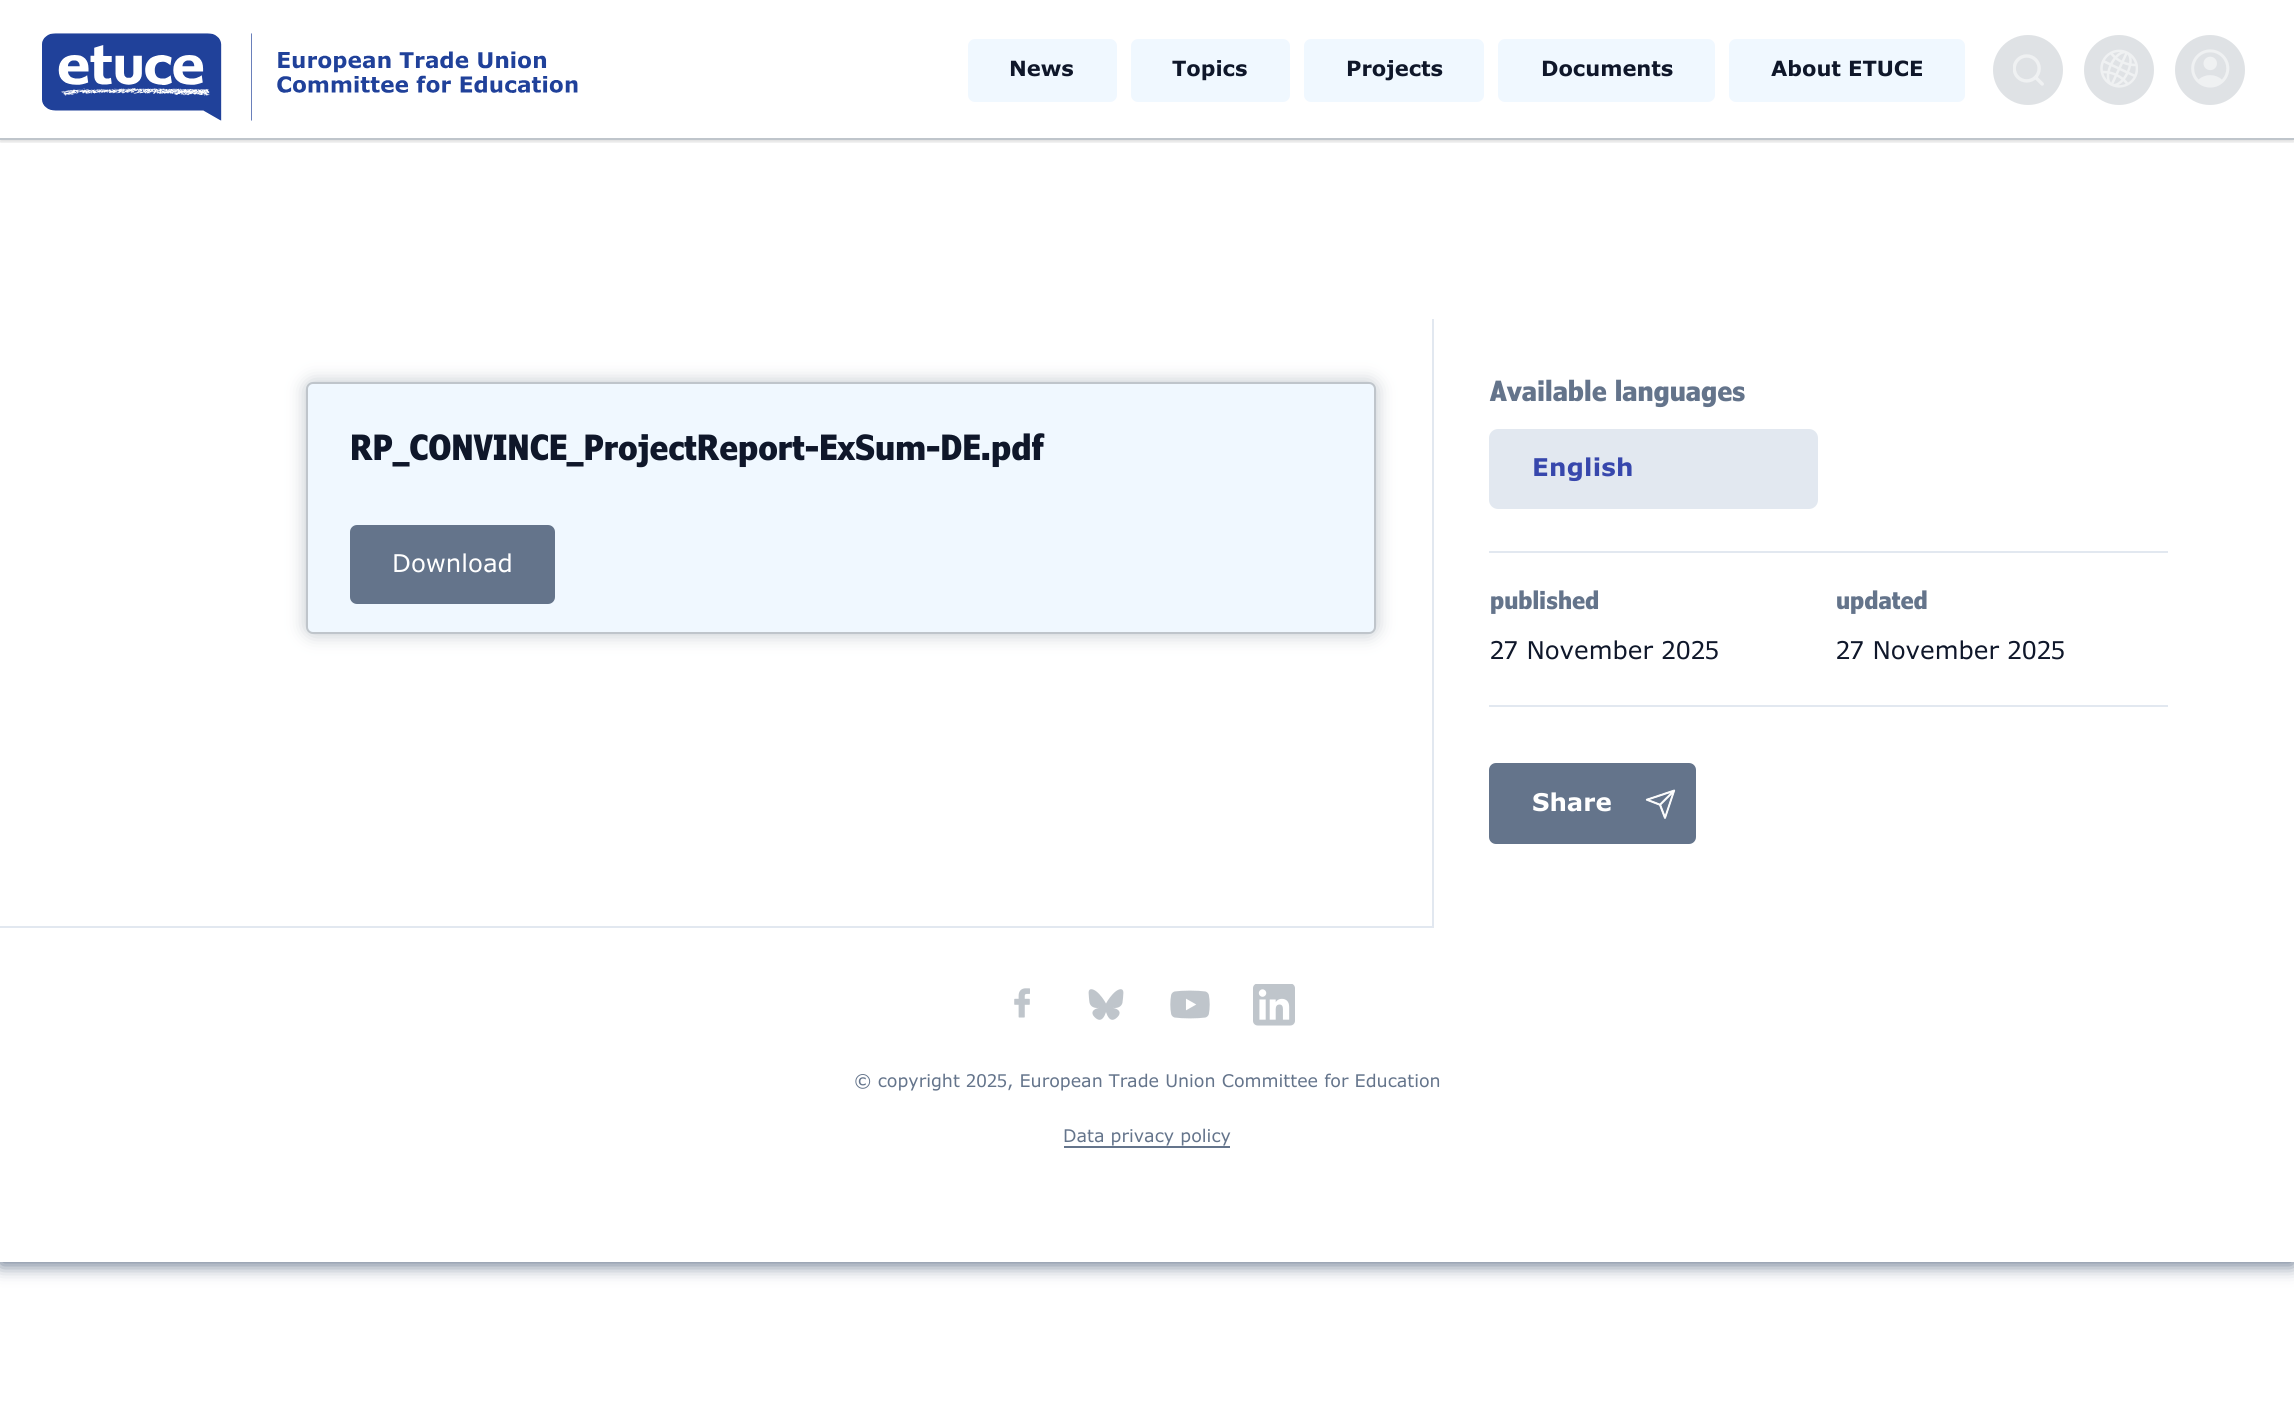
import math
import cairo

surface = cairo.ImageSurface(cairo.FORMAT_RGB24, 2294, 1406)
ctx = cairo.Context(surface)
options = cairo.FontOptions()
options.set_hint_metrics(cairo.HINT_METRICS_OFF)
options.set_hint_style(cairo.HINT_STYLE_NONE)
ctx.set_font_options(options)
ctx.set_miter_limit(4)


def set_color(code):
    ctx.set_source_rgb(*(v / 255 for v in bytes.fromhex(code[-6:])))


def draw_text(x, y, s, family, size, color, bold=False, italic=False):
    ctx.select_font_face(family, cairo.FONT_SLANT_ITALIC if italic else cairo.FONT_SLANT_NORMAL, cairo.FONT_WEIGHT_BOLD if bold else cairo.FONT_WEIGHT_NORMAL)
    ctx.set_font_size(size)
    set_color(color)
    ctx.move_to(x, y)
    ctx.show_text(s)


def draw_spaced(x, y, s, letter, word):
    ctx.move_to(x, y)
    for ch in s:
        ctx.show_text(ch)
        ctx.rel_move_to(letter + word * (ch == ' '), 0)


def fill_rect(x, y, w, h, color):
    set_color(color)
    ctx.rectangle(x, y, w, h)
    ctx.fill()


def rounded_rect(x, y, w, h, r):
    ctx.new_sub_path()
    for i, (u, v) in enumerate([(x + w - r, y + h - r), (x + r, y + h - r), (x + r, y + r), (x + w - r, y + r)]):
        ctx.arc(u, v, r, i * math.pi / 2, (i + 1) * math.pi / 2)
    ctx.close_path()


def draw_shadow(x, y, w, h, r, blur, alpha):
    ctx.push_group_with_content(cairo.CONTENT_ALPHA)
    ctx.set_operator(cairo.OPERATOR_SOURCE)
    for i in range(15, -16, -2):
        e = blur * i / 6
        if min(w, h) + 2 * e > 0:
            ctx.set_source_rgba(0, 0, 0, alpha * math.erfc((i - 1) / 8.5) / 2)
            rounded_rect(x - e, y - e, w + 2 * e, h + 2 * e, max(0, min(r + e + blur * .6, min(w, h) / 2 + e)))
            ctx.fill()
    ctx.mask(ctx.pop_group())


def draw_image(path, x, y, w, h):
    ctx.save()
    ctx.set_source_surface(cairo.ImageSurface.create_from_png(path), x, y)
    ctx.rectangle(x, y, w, h)
    ctx.fill()
    ctx.restore()


set_color("#ffffff")
ctx.paint()
ctx.save()
ctx.set_fill_rule(cairo.FILL_RULE_EVEN_ODD)
ctx.new_path()
ctx.move_to(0, 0)
ctx.line_to(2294, 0)
ctx.line_to(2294, 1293)
ctx.line_to(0, 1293)
ctx.close_path()
ctx.move_to(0, 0)
ctx.line_to(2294, 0)
ctx.line_to(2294, 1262)
ctx.line_to(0, 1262)
ctx.close_path()
ctx.clip()
set_color("#64748b")
draw_shadow(0, 4, 2294, 1261, 0, 9, 1)
ctx.restore()
ctx.save()
ctx.rectangle(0, 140, 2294, 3)
ctx.clip()
set_color("#000000")
draw_shadow(0, 2, 2294, 140, 0, 1.5, 0.06)
draw_shadow(0, 2, 2294, 140, 0, 2, 0.08)
ctx.restore()
fill_rect(0, 138, 2294, 2, "#bfc5cb")
draw_image("assets/img1.png", 42, 33, 536, 88)
set_color("#f0f8ff")
rounded_rect(968, 39, 149, 63, 7)
ctx.fill()
draw_text(1009, 76, "News", "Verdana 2", 21, "#0f172a", bold=True)
set_color("#f0f8ff")
rounded_rect(1131, 39, 159, 63, 7)
ctx.fill()
draw_text(1172, 76, "Topics", "Verdana 2", 21, "#0f172a", bold=True)
set_color("#f0f8ff")
rounded_rect(1304, 39, 180, 63, 7)
ctx.fill()
draw_text(1346, 76, "Projects", "Verdana 2", 21, "#0f172a", bold=True)
set_color("#f0f8ff")
rounded_rect(1498, 39, 217, 63, 7)
ctx.fill()
draw_text(1541, 76, "Documents", "Verdana 2", 21, "#0f172a", bold=True)
set_color("#f0f8ff")
rounded_rect(1729, 39, 236, 63, 7)
ctx.fill()
draw_text(1771, 76, "About ETUCE", "Verdana 2", 21, "#0f172a", bold=True)
set_color("#dfe2e5")
ctx.new_path()
ctx.arc(2028, 70, 35, 0, 2 * math.pi)
ctx.fill()
draw_image("assets/img2.png", 2013, 54, 31, 32)
ctx.arc(2119, 70, 35, 0, 2 * math.pi)
ctx.fill()
draw_image("assets/img3.png", 2100, 49, 38, 39)
ctx.arc(2210, 70, 35, 0, 2 * math.pi)
ctx.fill()
draw_image("assets/img4.png", 2191, 49, 39, 39)
fill_rect(1432, 319, 2, 609, "#e2e8f0")
fill_rect(0, 926, 1433, 2, "#e2e8f0")
set_color("#bfc5cb")
draw_shadow(306, 382, 1070, 252, 7, 9, 1)
set_color("#f0f8ff")
rounded_rect(307, 383, 1068, 250, 6)
ctx.fill_preserve()
set_color("#bfc5cb")
ctx.stroke()
draw_text(350, 460, "RP_CONVINCE_ProjectReport-ExSum-DE.pdf", "Verdana", 35, "#0f172a", bold=True)
set_color("#64748b")
rounded_rect(350, 525, 205, 79, 7)
ctx.fill()
draw_text(392, 572, "Download", "Verdana", 24.5, "#ffffff")
fill_rect(1489, 551, 679, 2, "#e2e8f0")
draw_text(1490, 401, "Available languages", "Verdana", 28, "#64748b", bold=True)
set_color("#e2e8f0")
rounded_rect(1489, 429, 329, 80, 9)
ctx.fill()
ctx.select_font_face("Verdana 2", cairo.FONT_SLANT_NORMAL, cairo.FONT_WEIGHT_BOLD)
ctx.set_font_size(24.5)
set_color("#3747ac")
draw_spaced(1532, 476, "English", 0.25, 0)
fill_rect(1489, 705, 679, 2, "#e2e8f0")
draw_text(1490, 609, "published", "Verdana", 24.5, "#64748b", bold=True)
draw_text(1490, 659, "27 November 2025", "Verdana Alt", 24.5, "#0f172a")
draw_text(1836, 609, "updated", "Verdana", 24.5, "#64748b", bold=True)
draw_text(1836, 659, "27 November 2025", "Verdana Alt", 24.5, "#0f172a")
set_color("#64748b")
rounded_rect(1489, 763, 207, 81, 7)
ctx.fill()
draw_image("assets/img5.png", 1645, 789, 31, 30)
draw_text(1532, 811, "Share", "Verdana 2", 24.5, "#ffffff", bold=True)
draw_image("assets/img6.png", 1014, 988, 16, 30)
draw_image("assets/img7.png", 1088, 989, 36, 31)
draw_image("assets/img8.png", 1170, 990, 40, 29)
draw_image("assets/img9.png", 1253, 984, 42, 42)
draw_text(854, 1087, "© copyright 2025, European Trade Union Committee for Education", "Verdana Alt", 17.5, "#64748b")
draw_text(1063, 1142, "Data privacy policy", "Verdana", 17.5, "#64748b")
fill_rect(1064, 1146, 166, 2, "#64748b")
surface.write_to_png("output.png")
